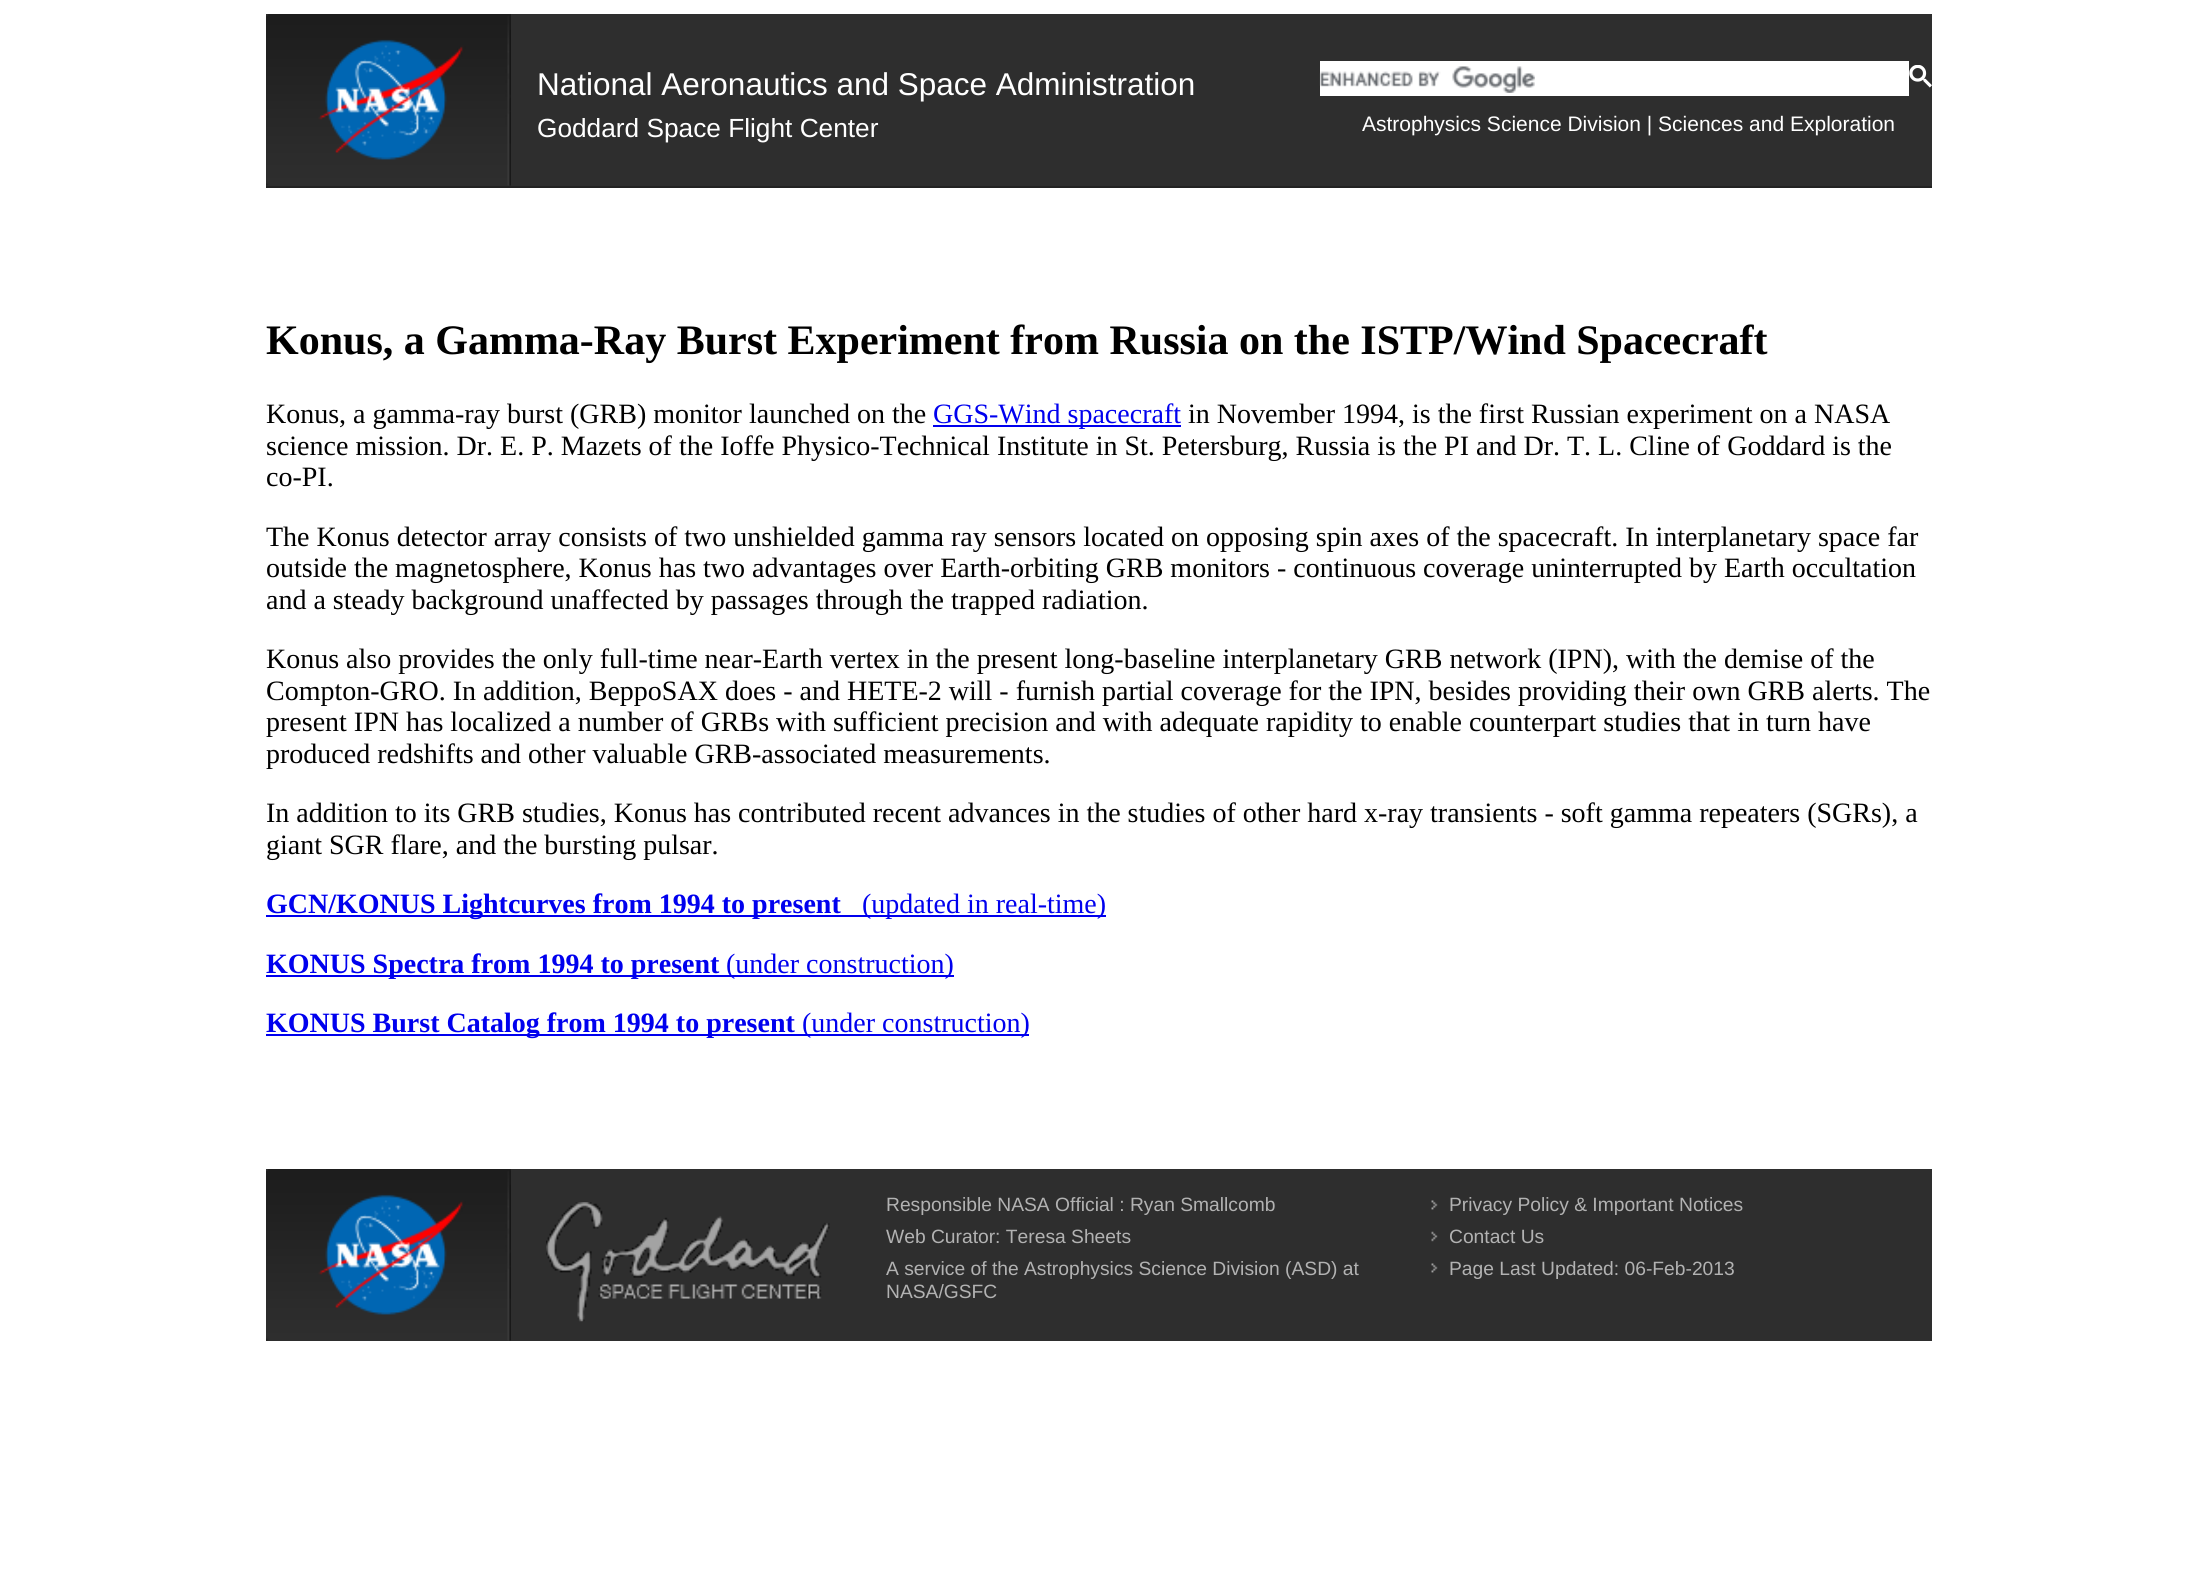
import math
import cairo

surface = cairo.ImageSurface(cairo.FORMAT_RGB24, 2197, 1573)
ctx = cairo.Context(surface)
options = cairo.FontOptions()
options.set_hint_metrics(cairo.HINT_METRICS_OFF)
options.set_hint_style(cairo.HINT_STYLE_NONE)
ctx.set_font_options(options)
ctx.set_miter_limit(4)


def set_color(code):
    ctx.set_source_rgb(*(v / 255 for v in bytes.fromhex(code[-6:])))


def draw_text(x, y, s, family, size, color, bold=False, italic=False):
    ctx.select_font_face(family, cairo.FONT_SLANT_ITALIC if italic else cairo.FONT_SLANT_NORMAL, cairo.FONT_WEIGHT_BOLD if bold else cairo.FONT_WEIGHT_NORMAL)
    ctx.set_font_size(size)
    set_color(color)
    ctx.move_to(x, y)
    ctx.show_text(s)


def fill_rect(x, y, w, h, color):
    set_color(color)
    ctx.rectangle(x, y, w, h)
    ctx.fill()


def draw_image(path, x, y, w, h):
    ctx.save()
    ctx.set_source_surface(cairo.ImageSurface.create_from_png(path), x, y)
    ctx.rectangle(x, y, w, h)
    ctx.fill()
    ctx.restore()


set_color("#ffffff")
ctx.paint()
fill_rect(266, 14, 1666, 172, "#2e2e2e")
fill_rect(266, 186, 1666, 2, "#222222")
draw_image("assets/img1.png", 266, 14, 245, 172)
draw_text(537, 95, "National Aeronautics and Space Administration", "Liberation Sans", 31.5, "#ffffff")
draw_text(537, 137, "Goddard Space Flight Center", "Liberation Sans", 26.25, "#ffffff")
fill_rect(1320, 61, 589, 35, "#ffffff")
draw_image("assets/img2.png", 1319, 66, 216, 27)
draw_image("assets/img3.png", 1909, 65, 23, 23)
draw_text(1362, 131, "Astrophysics Science Division | Sciences and Exploration", "Liberation Sans", 21, "#ffffff")
draw_text(266, 354, "Konus, a Gamma-Ray Burst Experiment from Russia on the ISTP/Wind Spacecraft", "Liberation Serif", 42, "#000000", bold=True)
draw_text(266, 423, "Konus, a gamma-ray burst (GRB) monitor launched on the", "Liberation Serif", 28, "#000000")
fill_rect(933, 425, 248, 2, "#0000ee")
draw_text(933, 423, "GGS-Wind spacecraft", "Liberation Serif", 28, "#0000ee")
draw_text(1188, 423, "in November 1994, is the first Russian experiment on a NASA", "Liberation Serif", 28, "#000000")
draw_text(266, 455, "science mission. Dr. E. P. Mazets of the Ioffe Physico-Technical Institute in St. Petersburg, Russia is the PI and Dr. T. L. Cline of Goddard is the", "Liberation Serif", 28, "#000000")
draw_text(266, 486, "co-PI.", "Liberation Serif", 28, "#000000")
draw_text(266, 546, "The Konus detector array consists of two unshielded gamma ray sensors located on opposing spin axes of the spacecraft. In interplanetary space far", "Liberation Serif", 28, "#000000")
draw_text(266, 577, "outside the magnetosphere, Konus has two advantages over Earth-orbiting GRB monitors - continuous coverage uninterrupted by Earth occultation", "Liberation Serif", 28, "#000000")
draw_text(266, 609, "and a steady background unaffected by passages through the trapped radiation.", "Liberation Serif", 28, "#000000")
draw_text(266, 668, "Konus also provides the only full-time near-Earth vertex in the present long-baseline interplanetary GRB network (IPN), with the demise of the", "Liberation Serif", 28, "#000000")
draw_text(266, 700, "Compton-GRO. In addition, BeppoSAX does - and HETE-2 will - furnish partial coverage for the IPN, besides providing their own GRB alerts. The", "Liberation Serif", 28, "#000000")
draw_text(266, 731, "present IPN has localized a number of GRBs with sufficient precision and with adequate rapidity to enable counterpart studies that in turn have", "Liberation Serif", 28, "#000000")
draw_text(266, 763, "produced redshifts and other valuable GRB-associated measurements.", "Liberation Serif", 28, "#000000")
draw_text(266, 822, "In addition to its GRB studies, Konus has contributed recent advances in the studies of other hard x-ray transients - soft gamma repeaters (SGRs), a", "Liberation Serif", 28, "#000000")
draw_text(266, 854, "giant SGR flare, and the bursting pulsar.", "Liberation Serif", 28, "#000000")
fill_rect(266, 915, 574, 2, "#0000ee")
draw_text(266, 913, "GCN/KONUS Lightcurves from 1994 to present", "Liberation Serif", 28, "#0000ee", bold=True)
fill_rect(840, 915, 266, 2, "#0000ee")
draw_text(862, 913, "(updated in real-time)", "Liberation Serif", 28, "#0000ee")
fill_rect(266, 975, 453, 2, "#0000ee")
draw_text(266, 973, "KONUS Spectra from 1994 to present", "Liberation Serif", 28, "#0000ee", bold=True)
fill_rect(719, 975, 235, 2, "#0000ee")
draw_text(726, 973, "(under construction)", "Liberation Serif", 28, "#0000ee")
fill_rect(266, 1034, 763, 2, "#0000ee")
draw_text(266, 1032, "KONUS Burst Catalog from 1994 to present", "Liberation Serif", 28, "#0000ee", bold=True)
draw_text(802, 1032, "(under construction)", "Liberation Serif", 28, "#0000ee")
fill_rect(266, 1169, 1666, 172, "#2e2e2e")
draw_image("assets/img1.png", 266, 1169, 245, 172)
draw_image("assets/img4.png", 546, 1202, 284, 120)
draw_text(886, 1211, "Responsible NASA Official : Ryan Smallcomb", "Liberation Sans", 19.25, "#b2b2b2")
draw_text(886, 1243, "Web Curator: Teresa Sheets", "Liberation Sans", 19.25, "#b2b2b2")
draw_text(886, 1275, "A service of the Astrophysics Science Division (ASD) at", "Liberation Sans", 19.25, "#b2b2b2")
draw_text(886, 1298, "NASA/GSFC", "Liberation Sans", 19.25, "#b2b2b2")
draw_image("assets/img5.png", 1431, 1200, 7, 10)
draw_text(1449, 1211, "Privacy Policy & Important Notices", "Liberation Sans", 19.25, "#b2b2b2")
draw_image("assets/img6.png", 1431, 1231, 7, 11)
draw_text(1449, 1243, "Contact Us", "Liberation Sans", 19.25, "#b2b2b2")
draw_image("assets/img5.png", 1431, 1263, 7, 10)
draw_text(1449, 1275, "Page Last Updated: 06-Feb-2013", "Liberation Sans", 19.25, "#b2b2b2")
surface.write_to_png("output.png")
